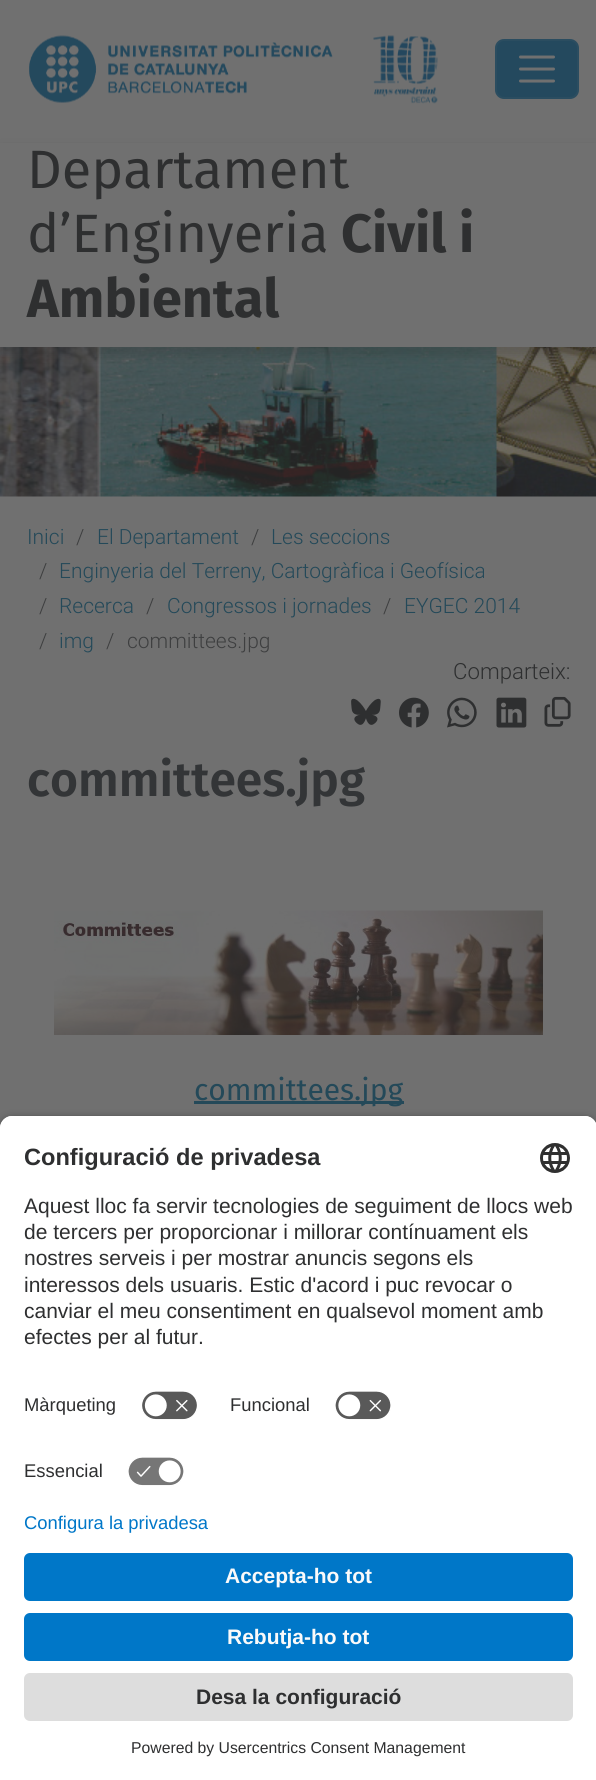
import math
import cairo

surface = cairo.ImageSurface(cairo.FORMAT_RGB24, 596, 1780)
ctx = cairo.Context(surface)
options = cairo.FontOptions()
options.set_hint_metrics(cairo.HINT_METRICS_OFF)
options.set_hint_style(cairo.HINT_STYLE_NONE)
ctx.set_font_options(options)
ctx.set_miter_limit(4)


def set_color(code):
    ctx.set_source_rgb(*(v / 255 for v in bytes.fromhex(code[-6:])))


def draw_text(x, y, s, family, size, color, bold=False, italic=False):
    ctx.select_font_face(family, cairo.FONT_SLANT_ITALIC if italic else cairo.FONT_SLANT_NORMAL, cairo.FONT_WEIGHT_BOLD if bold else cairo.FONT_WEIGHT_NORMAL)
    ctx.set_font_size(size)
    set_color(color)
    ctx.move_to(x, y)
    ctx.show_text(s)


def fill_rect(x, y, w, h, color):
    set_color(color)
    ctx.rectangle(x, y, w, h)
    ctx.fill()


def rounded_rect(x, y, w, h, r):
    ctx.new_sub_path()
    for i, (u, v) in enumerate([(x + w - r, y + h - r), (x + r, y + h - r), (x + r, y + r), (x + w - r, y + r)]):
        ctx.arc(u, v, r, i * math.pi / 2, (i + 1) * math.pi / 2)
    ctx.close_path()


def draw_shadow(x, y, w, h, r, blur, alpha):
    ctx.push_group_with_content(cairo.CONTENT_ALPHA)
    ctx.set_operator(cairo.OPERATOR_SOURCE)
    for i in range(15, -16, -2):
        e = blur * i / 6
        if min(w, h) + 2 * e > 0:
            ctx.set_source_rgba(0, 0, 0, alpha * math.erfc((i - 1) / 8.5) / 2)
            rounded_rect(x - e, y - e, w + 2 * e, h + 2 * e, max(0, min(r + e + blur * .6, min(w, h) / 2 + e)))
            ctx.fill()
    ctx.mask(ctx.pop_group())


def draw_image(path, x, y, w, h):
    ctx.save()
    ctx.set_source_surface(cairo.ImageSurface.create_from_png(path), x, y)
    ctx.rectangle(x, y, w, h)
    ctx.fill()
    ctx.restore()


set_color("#707070")
ctx.paint()
draw_image("assets/img1.png", 29, 35, 304, 68)
draw_image("assets/img2.png", 373, 35, 65, 69)
set_color("#24495e")
rounded_rect(495, 39, 84, 60, 9)
ctx.fill()
rounded_rect(496, 40, 82, 58, 8)
ctx.set_source_rgba(0.439, 0.439, 0.439, 0.1)
ctx.stroke()
ctx.new_path()
ctx.move_to(520.5, 57)
ctx.line_to(553.5, 57)
ctx.move_to(520.5, 69)
ctx.line_to(553.5, 69)
ctx.move_to(520.5, 81)
ctx.line_to(553.5, 81)
set_color("#707070")
ctx.set_line_width(3)
ctx.set_line_cap(cairo.LINE_CAP_ROUND)
ctx.stroke()
draw_image("assets/img3.png", 0, 347, 596, 150)
set_color("#242424")
draw_shadow(0, 149, 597, 208, 0, 6, 0.2)
fill_rect(0, 143, 596, 204, "#707070")
draw_text(27, 188, "Departament", "Fira Sans", 54, "#2e2f30")
draw_text(27, 252, "d’Enginyeria", "Fira Sans", 54, "#2e2f30")
draw_text(341, 252, "Civil i", "Fira Sans", 54, "#2e2f30", bold=True)
draw_text(27, 317, "Ambiental", "Fira Sans", 54, "#2e2f30", bold=True)
draw_text(27, 544, "Inici", "Roboto Light", 21, "#244959")
draw_text(76, 544, "/", "Roboto Light", 21, "#3e3f40")
draw_text(97, 544, "El Departament", "Roboto Light", 21, "#244959")
draw_text(251, 544, "/", "Roboto Light", 21, "#3e3f40")
draw_text(271, 544, "Les seccions", "Roboto Light", 21, "#244959")
draw_text(39, 578, "/", "Roboto Light", 21, "#3e3f40")
draw_text(59, 578, "Enginyeria del Terreny, Cartogràfica i Geofísica", "Roboto Light", 21, "#244959")
draw_text(39, 613, "/", "Roboto Light", 21, "#3e3f40")
draw_text(59, 613, "Recerca", "Roboto Light", 21, "#244959")
draw_text(146, 613, "/", "Roboto Light", 21, "#3e3f40")
draw_text(167, 613, "Congressos i jornades", "Roboto Light", 21, "#244959")
draw_text(383, 613, "/", "Roboto Light", 21, "#3e3f40")
draw_text(404, 613, "EYGEC 2014", "Roboto Light", 21, "#244959")
draw_text(39, 648, "/", "Roboto Light", 21, "#3e3f40")
draw_text(59, 648, "img", "Roboto Light", 21, "#244959")
draw_text(106, 648, "/", "Roboto Light", 21, "#3e3f40")
draw_text(127, 648, "committees.jpg", "Roboto Light", 21, "#3e3f40")
draw_text(453, 679, "Comparteix:", "Roboto Light", 22.25, "#2e2f30")
draw_image("assets/img4.png", 351, 698, 30, 27)
draw_image("assets/img5.png", 399, 697, 30, 31)
draw_image("assets/img6.png", 447, 697, 30, 31)
draw_image("assets/img7.png", 496, 697, 31, 31)
draw_image("assets/img8.png", 544, 696, 27, 31)
draw_text(27, 796, "committees.jpg", "Fira Sans SemiBold", 48, "#333537")
draw_image("assets/img9.png", 54, 910, 489, 125)
fill_rect(194, 1101, 210, 3, "#244959")
draw_text(194, 1100, "committees.jpg", "Fira Sans", 30, "#244959")
set_color("#000000")
draw_shadow(0, 1121, 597, 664, 12, 5, 0.8)
set_color("#ffffff")
ctx.new_path()
ctx.move_to(12, 1116)
ctx.line_to(585, 1116)
ctx.curve_to(591.5, 1116, 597, 1121.5, 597, 1128)
ctx.line_to(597, 1514)
ctx.line_to(0, 1514)
ctx.line_to(0, 1128)
ctx.curve_to(0, 1121.5, 5.5, 1116, 12, 1116)
ctx.close_path()
ctx.fill()
ctx.new_path()
ctx.move_to(12, 1116)
ctx.line_to(585, 1116)
ctx.curve_to(591.5, 1116, 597, 1121.5, 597, 1128)
ctx.line_to(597, 1382)
ctx.line_to(0, 1382)
ctx.line_to(0, 1128)
ctx.curve_to(0, 1121.5, 5.5, 1116, 12, 1116)
ctx.close_path()
ctx.fill()
draw_text(24, 1165, "Configuració de privadesa", "Liberation Sans", 23.6, "#2e2f30", bold=True)
draw_image("assets/img10.png", 540, 1143, 30, 30)
draw_text(24, 1213, "Aquest lloc fa servir tecnologies de seguiment de llocs web", "Liberation Sans", 21, "#2e2f30")
draw_text(24, 1239, "de tercers per proporcionar i millorar contínuament els", "Liberation Sans", 21, "#2e2f30")
draw_text(24, 1265, "nostres serveis i per mostrar anuncis segons els", "Liberation Sans", 21, "#2e2f30")
draw_text(24, 1292, "interessos dels usuaris. Estic d'acord i puc revocar o", "Liberation Sans", 21, "#2e2f30")
draw_text(24, 1318, "canviar el meu consentiment en qualsevol moment amb", "Liberation Sans", 21, "#2e2f30")
draw_text(24, 1344, "efectes per al futur.", "Liberation Sans", 21, "#2e2f30")
draw_text(24, 1411, "Màrqueting", "Liberation Sans", 18.4, "#2e2f30")
draw_image("assets/img11.png", 142, 1391, 55, 29)
draw_text(230, 1411, "Funcional", "Liberation Sans", 18.4, "#2e2f30")
draw_image("assets/img12.png", 335, 1391, 56, 29)
draw_text(24, 1477, "Essencial", "Liberation Sans", 18.4, "#2e2f30")
draw_image("assets/img13.png", 128, 1457, 56, 29)
fill_rect(0, 1514, 596, 266, "#ffffff")
draw_text(24, 1529, "Configura la privadesa", "Liberation Sans", 18.4, "#0077c8")
rounded_rect(24, 1553, 549, 48, 6)
ctx.fill()
draw_text(225, 1583, "Accepta-ho tot", "Liberation Sans", 21, "#fafafa", bold=True)
set_color("#0077c8")
rounded_rect(24, 1613, 549, 48, 6)
ctx.fill()
draw_text(227, 1644, "Rebutja-ho tot", "Liberation Sans", 21, "#fafafa", bold=True)
set_color("#dddddd")
rounded_rect(24, 1673, 549, 48, 6)
ctx.fill()
draw_text(196, 1704, "Desa la configuració", "Liberation Sans", 21, "#2e2f30", bold=True)
draw_text(131, 1753, "Powered by Usercentrics Consent Management", "Liberation Sans", 15.75, "#2e2f30")
surface.write_to_png("output.png")
